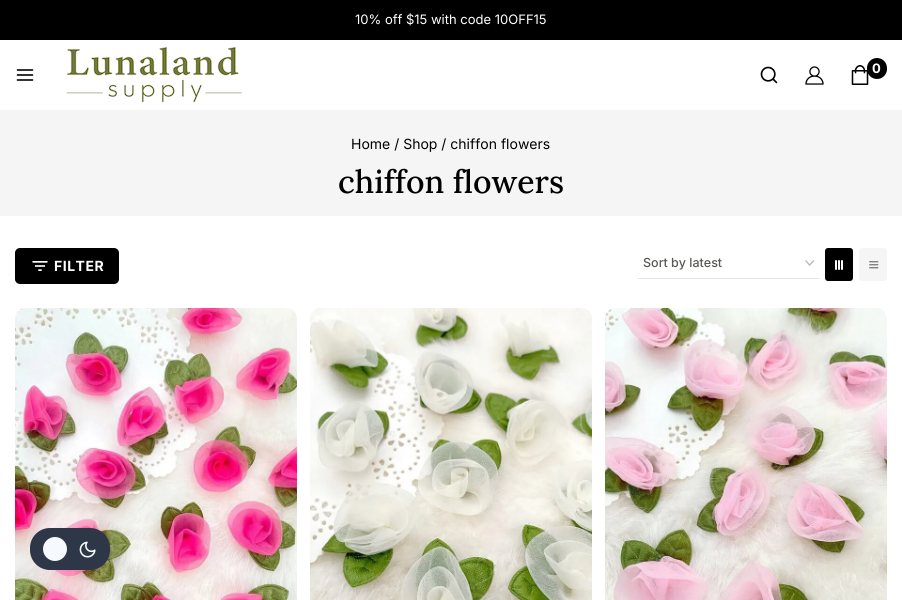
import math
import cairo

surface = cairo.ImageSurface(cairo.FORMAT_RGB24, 902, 600)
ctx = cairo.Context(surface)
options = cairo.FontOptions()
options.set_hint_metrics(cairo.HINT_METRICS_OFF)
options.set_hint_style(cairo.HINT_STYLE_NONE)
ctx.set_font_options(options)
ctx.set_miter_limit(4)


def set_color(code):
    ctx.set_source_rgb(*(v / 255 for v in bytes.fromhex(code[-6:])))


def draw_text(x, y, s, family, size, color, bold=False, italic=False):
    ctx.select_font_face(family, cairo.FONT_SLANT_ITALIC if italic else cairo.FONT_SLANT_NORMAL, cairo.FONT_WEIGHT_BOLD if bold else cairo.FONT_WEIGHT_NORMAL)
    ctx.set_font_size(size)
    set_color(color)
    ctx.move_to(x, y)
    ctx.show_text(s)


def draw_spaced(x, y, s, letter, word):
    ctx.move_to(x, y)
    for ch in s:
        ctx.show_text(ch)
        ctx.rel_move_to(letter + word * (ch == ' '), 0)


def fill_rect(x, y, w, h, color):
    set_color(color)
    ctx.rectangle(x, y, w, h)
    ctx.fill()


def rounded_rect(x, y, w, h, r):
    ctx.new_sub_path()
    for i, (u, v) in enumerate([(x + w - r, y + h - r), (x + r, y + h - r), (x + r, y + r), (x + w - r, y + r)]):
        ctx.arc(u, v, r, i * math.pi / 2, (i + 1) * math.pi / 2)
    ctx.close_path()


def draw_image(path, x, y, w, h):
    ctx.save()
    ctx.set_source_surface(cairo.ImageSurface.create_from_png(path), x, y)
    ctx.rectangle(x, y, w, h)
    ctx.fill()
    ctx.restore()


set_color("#ffffff")
ctx.paint()
fill_rect(0, 0, 902, 40, "#000000")
draw_text(355, 24, "10% off $15 with code 10OFF15", "Inter", 13, "#ffffff")
draw_image("assets/img1.png", 16, 69, 18, 12)
draw_image("assets/img2.png", 66, 46, 176, 57)
draw_image("assets/img3.png", 760, 66, 18, 18)
draw_image("assets/img4.png", 805, 66, 19, 19)
set_color("#000000")
rounded_rect(867, 58, 20, 21, 10)
ctx.fill()
draw_image("assets/img5.png", 851, 65, 18, 20)
ctx.select_font_face("Inter", cairo.FONT_SLANT_NORMAL, cairo.FONT_WEIGHT_BOLD)
set_color("#ffffff")
draw_spaced(872, 73, "0", 0.5, 0)
fill_rect(0, 110, 902, 106, "#f5f5f5")
draw_text(351, 149, "Home / Shop / chiffon flowers", "Inter", 14, "#000000")
draw_text(338, 193, "chiffon flowers", "Lora Medium", 32, "#000000")
rounded_rect(15, 248, 104, 36, 5)
ctx.fill()
draw_image("assets/img6.png", 32, 261, 16, 10)
ctx.select_font_face("Inter", cairo.FONT_SLANT_NORMAL, cairo.FONT_WEIGHT_BOLD)
ctx.set_font_size(14)
set_color("#ffffff")
draw_spaced(54, 271, "FILTER", 0.5, 0)
ctx.new_path()
ctx.move_to(805.5, 260.5)
ctx.line_to(809.5, 265)
ctx.line_to(814, 260.5)
set_color("#bbbbbb")
ctx.set_line_width(1.4)
ctx.stroke()
fill_rect(638, 278, 181, 1, "#e5e5e5")
draw_text(643, 267, "Sort by latest", "Inter Medium", 12.5, "#5a5854")
set_color("#000000")
rounded_rect(825, 248, 28, 33, 3)
ctx.fill()
set_color("#ffffff")
rounded_rect(835, 260, 2, 10, 1)
ctx.fill()
rounded_rect(838, 260, 2, 10, 1)
ctx.fill()
rounded_rect(841, 260, 2, 10, 1)
ctx.fill()
set_color("#f5f5f5")
rounded_rect(859, 248, 28, 33, 3)
ctx.fill()
draw_image("assets/img7.png", 869, 261, 10, 8)
draw_image("assets/img8.png", 15, 308, 282, 292)
draw_image("assets/img9.png", 310, 308, 282, 292)
draw_image("assets/img10.png", 605, 308, 282, 292)
set_color("#2d3748")
rounded_rect(30, 528, 80, 42, 20)
ctx.fill()
set_color("#f7fafc")
ctx.arc(55, 549, 12, 0, 2 * math.pi)
ctx.fill()
draw_image("assets/img11.png", 79, 541, 17, 17)
surface.write_to_png("output.png")
